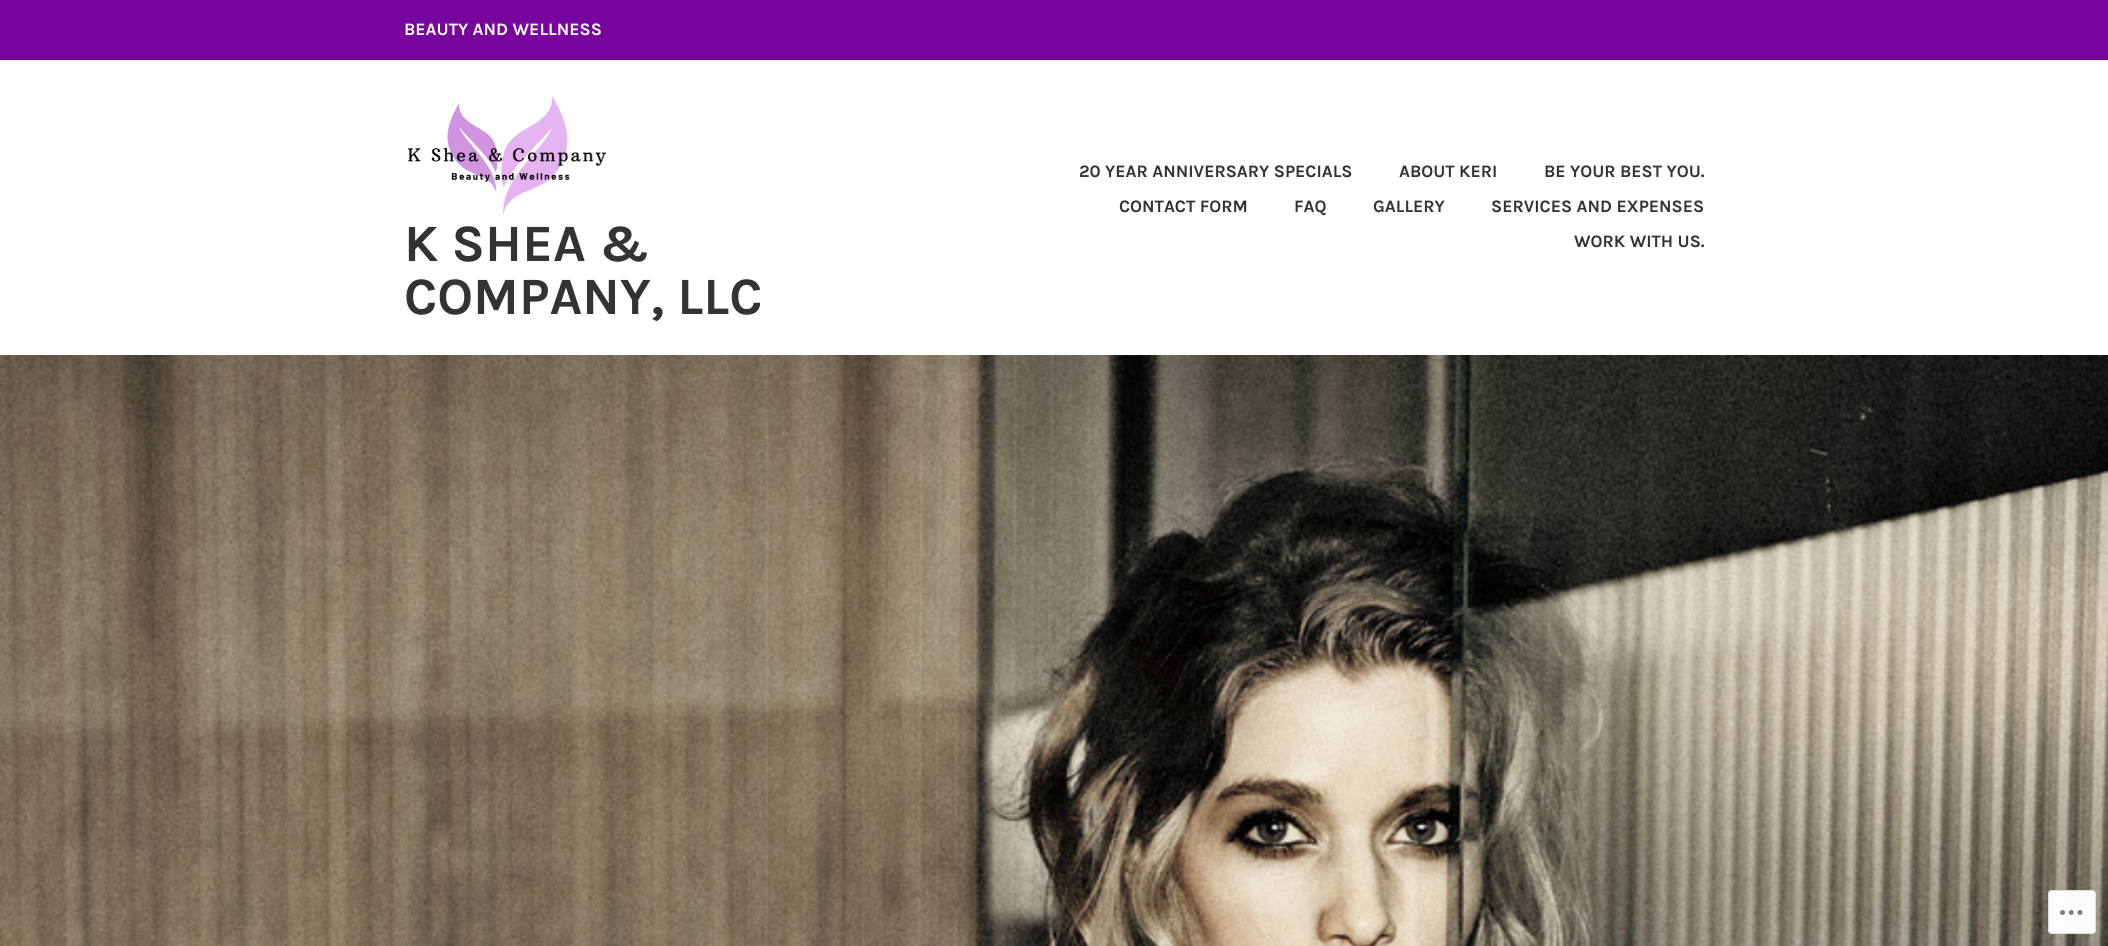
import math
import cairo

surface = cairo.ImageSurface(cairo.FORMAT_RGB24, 2108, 946)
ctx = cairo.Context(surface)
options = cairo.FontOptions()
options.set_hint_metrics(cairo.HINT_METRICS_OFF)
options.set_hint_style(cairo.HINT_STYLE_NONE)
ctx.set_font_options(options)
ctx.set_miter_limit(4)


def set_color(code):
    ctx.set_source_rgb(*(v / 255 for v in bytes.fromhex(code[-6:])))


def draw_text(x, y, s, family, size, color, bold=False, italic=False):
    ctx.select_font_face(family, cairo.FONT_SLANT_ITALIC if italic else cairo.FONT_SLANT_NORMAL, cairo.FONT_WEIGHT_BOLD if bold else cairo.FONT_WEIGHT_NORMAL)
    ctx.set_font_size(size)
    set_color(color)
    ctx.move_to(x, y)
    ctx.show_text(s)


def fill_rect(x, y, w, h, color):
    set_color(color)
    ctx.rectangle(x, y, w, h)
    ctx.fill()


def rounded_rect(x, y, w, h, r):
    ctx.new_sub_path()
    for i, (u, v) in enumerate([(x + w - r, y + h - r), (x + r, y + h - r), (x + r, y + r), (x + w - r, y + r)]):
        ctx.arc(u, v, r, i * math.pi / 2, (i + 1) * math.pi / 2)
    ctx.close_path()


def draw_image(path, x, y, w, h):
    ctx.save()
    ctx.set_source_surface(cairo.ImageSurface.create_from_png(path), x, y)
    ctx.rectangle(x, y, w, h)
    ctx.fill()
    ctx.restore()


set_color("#ffffff")
ctx.paint()
fill_rect(0, 0, 2108, 60, "#77059d")
draw_text(404, 35, "BEAUTY AND WELLNESS", "Karla", 17.5, "#ffffff", bold=True)
draw_text(1079, 177, "20 YEAR ANNIVERSARY SPECIALS", "Karla", 17.5, "#333333", bold=True)
draw_text(1399, 177, "ABOUT KERI", "Karla", 17.5, "#333333", bold=True)
draw_text(1544, 177, "BE YOUR BEST YOU.", "Karla", 17.5, "#333333", bold=True)
draw_text(1119, 212, "CONTACT FORM", "Karla", 17.5, "#333333", bold=True)
draw_text(1294, 212, "FAQ", "Karla", 17.5, "#333333", bold=True)
draw_text(1373, 212, "GALLERY", "Karla", 17.5, "#333333", bold=True)
draw_text(1491, 212, "SERVICES AND EXPENSES", "Karla", 17.5, "#333333", bold=True)
draw_text(1574, 247, "WORK WITH US.", "Karla", 17.5, "#333333", bold=True)
draw_image("assets/img1.png", 407, 96, 200, 119)
draw_text(404, 261, "K SHEA &", "Karla", 52.5, "#333333", bold=True)
draw_text(404, 314, "COMPANY, LLC", "Karla", 52.5, "#333333", bold=True)
draw_image("assets/img2.png", 0, 355, 2108, 591)
ctx.set_source_rgba(1, 1, 1, 0.98)
rounded_rect(2048, 890, 48, 44, 4)
ctx.fill()
rounded_rect(2048.5, 890.5, 47, 43, 3.5)
ctx.set_source_rgba(0.863, 0.863, 0.871, 0.98)
ctx.set_line_width(1)
ctx.stroke()
draw_image("assets/img3.png", 2060, 910, 23, 5)
surface.write_to_png("output.png")
